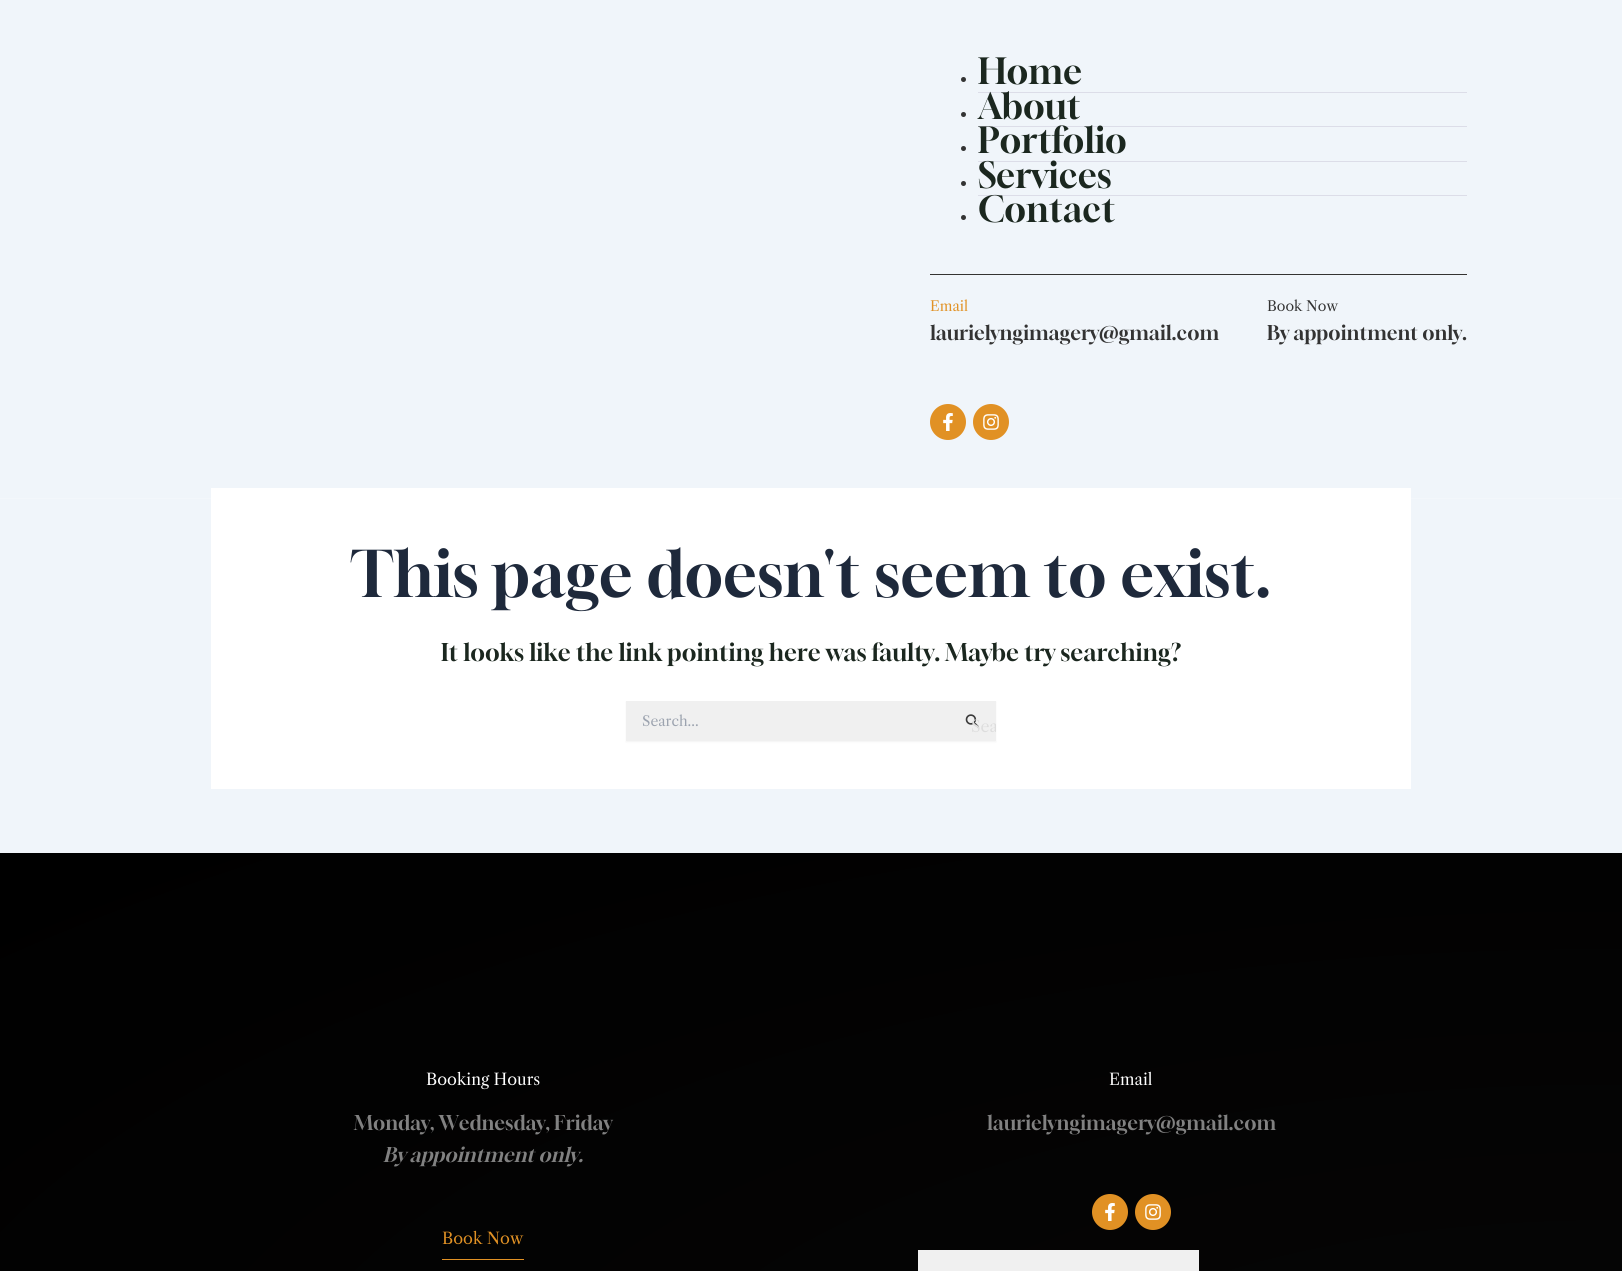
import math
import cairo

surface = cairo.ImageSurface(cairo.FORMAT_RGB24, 1622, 1271)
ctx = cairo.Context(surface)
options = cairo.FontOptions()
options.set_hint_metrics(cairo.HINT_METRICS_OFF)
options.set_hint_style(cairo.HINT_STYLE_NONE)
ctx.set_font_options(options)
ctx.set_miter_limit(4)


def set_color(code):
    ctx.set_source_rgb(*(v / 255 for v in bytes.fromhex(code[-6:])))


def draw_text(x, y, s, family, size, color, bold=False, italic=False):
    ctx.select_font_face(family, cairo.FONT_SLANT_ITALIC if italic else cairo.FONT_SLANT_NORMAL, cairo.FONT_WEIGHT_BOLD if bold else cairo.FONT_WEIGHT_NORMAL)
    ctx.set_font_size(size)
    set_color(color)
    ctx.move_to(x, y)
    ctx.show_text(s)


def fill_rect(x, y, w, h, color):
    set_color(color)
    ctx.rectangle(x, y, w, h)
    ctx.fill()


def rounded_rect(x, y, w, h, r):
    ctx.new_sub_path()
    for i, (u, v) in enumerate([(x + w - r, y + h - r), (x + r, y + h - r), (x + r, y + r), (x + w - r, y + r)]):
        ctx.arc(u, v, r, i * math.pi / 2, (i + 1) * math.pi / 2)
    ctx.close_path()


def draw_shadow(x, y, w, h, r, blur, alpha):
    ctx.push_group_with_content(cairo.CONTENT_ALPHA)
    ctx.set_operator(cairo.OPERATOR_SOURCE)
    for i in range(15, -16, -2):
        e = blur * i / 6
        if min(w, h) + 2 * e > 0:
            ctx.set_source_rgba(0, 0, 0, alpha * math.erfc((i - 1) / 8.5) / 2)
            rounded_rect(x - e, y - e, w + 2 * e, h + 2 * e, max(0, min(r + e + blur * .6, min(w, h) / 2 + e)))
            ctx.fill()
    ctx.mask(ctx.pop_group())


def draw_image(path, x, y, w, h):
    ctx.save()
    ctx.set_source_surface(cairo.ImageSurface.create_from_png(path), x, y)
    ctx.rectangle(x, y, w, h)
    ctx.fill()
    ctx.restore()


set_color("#f0f5fa")
ctx.paint()
fill_rect(0, 498, 1622, 1, "#f3f7fb")
fill_rect(978, 92, 489, 1, "#dcdde8")
set_color("#333333")
ctx.arc(963.5, 79.5, 2.5, 0, 2 * math.pi)
ctx.fill()
draw_text(978, 84, "Home", "Gloock", 35.5, "#1b271f")
fill_rect(978, 126, 489, 1, "#dcdde8")
set_color("#333333")
ctx.new_path()
ctx.arc(963.5, 114.5, 2.5, 0, 2 * math.pi)
ctx.fill()
draw_text(978, 119, "About", "Gloock", 35.5, "#1b271f")
fill_rect(978, 161, 489, 1, "#dcdde8")
set_color("#333333")
ctx.new_path()
ctx.arc(963.5, 148.5, 2.5, 0, 2 * math.pi)
ctx.fill()
draw_text(978, 153, "Portfolio", "Gloock", 35.5, "#1b271f")
fill_rect(978, 195, 489, 1, "#dcdde8")
set_color("#333333")
ctx.new_path()
ctx.arc(963.5, 183.5, 2.5, 0, 2 * math.pi)
ctx.fill()
draw_text(978, 188, "Services", "Gloock", 35.5, "#1b271f")
set_color("#333333")
ctx.new_path()
ctx.arc(963.5, 217.5, 2.5, 0, 2 * math.pi)
ctx.fill()
draw_text(978, 222, "Contact", "Gloock", 35.5, "#1b271f")
fill_rect(930, 274, 537, 1, "#343331")
draw_text(930, 311, "Email", "Libre Caslon Text", 14, "#e19124")
draw_text(930, 340, "laurielyngimagery@gmail.com", "Gloock", 20, "#333333")
draw_text(1267, 311, "Book Now", "Libre Caslon Text", 14, "#333333")
draw_text(1267, 340, "By appointment only.", "Gloock", 20, "#333333")
set_color("#e19124")
ctx.new_path()
ctx.arc(948, 422, 18, 0, 2 * math.pi)
ctx.fill()
draw_image("assets/img1.png", 943, 413, 10, 18)
ctx.arc(991, 422, 18, 0, 2 * math.pi)
ctx.fill()
draw_image("assets/img2.png", 983, 414, 16, 16)
fill_rect(211, 488, 1200, 301, "#ffffff")
draw_text(350, 597, "This page doesn't seem to exist.", "Gloock", 63.1, "#1e293b")
draw_text(441, 661, "It looks like the link pointing here was faulty. Maybe try searching?", "Gloock", 24, "#1b271f")
set_color("#000000")
draw_shadow(626, 702, 370, 40, 0, 1, 0.05)
fill_rect(626, 701, 370, 40, "#f0f0f0")
draw_text(642, 726, "Search...", "Libre Caslon Text", 14, "#9ca3af")
draw_image("assets/img3.png", 965, 714, 14, 15)
ctx.save()
rounded_rect(951, 701, 45, 52, 2)
ctx.clip()
draw_text(971, 732, "Sea", "Libre Caslon Text", 16, "#dddddd")
ctx.restore()
gradient = cairo.RadialGradient(0, 0, 0, 0, 0, 1)
gradient.set_matrix(cairo.Matrix(1 / 2294, 0, 0, 1 / 830, -1 * 1622 / 2294, -1 * 1440 / 830))
gradient.add_color_stop_rgba(0, 0.027, 0.024, 0.024, 1)
gradient.add_color_stop_rgba(1, 0, 0, 0, 1)
ctx.set_source(gradient)
ctx.rectangle(0, 853, 1622, 418)
ctx.fill()
draw_text(426, 1085, "Booking Hours", "Libre Caslon Text", 16, "#ffffff")
draw_text(354, 1130, "Monday, Wednesday, Friday", "Gloock", 20, "#818181")
draw_text(383, 1162, "By appointment only.", "Gloock", 20, "#818181", italic=True)
fill_rect(442, 1259, 82, 1, "#e19124")
draw_text(442, 1244, "Book Now", "Libre Caslon Text", 16, "#e19124")
draw_text(1109, 1085, "Email", "Libre Caslon Text", 16, "#ffffff")
draw_text(987, 1130, "laurielyngimagery@gmail.com", "Gloock", 20, "#818181")
set_color("#e19124")
ctx.new_path()
ctx.arc(1110, 1212, 18, 0, 2 * math.pi)
ctx.fill()
draw_image("assets/img1.png", 1105, 1203, 10, 18)
ctx.arc(1153, 1212, 18, 0, 2 * math.pi)
ctx.fill()
draw_image("assets/img2.png", 1145, 1204, 16, 16)
set_color("#f0f0f0")
ctx.rectangle(918.5, 1250.5, 280, 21)
ctx.fill_preserve()
ctx.set_line_width(1)
ctx.stroke()
surface.write_to_png("output.png")
